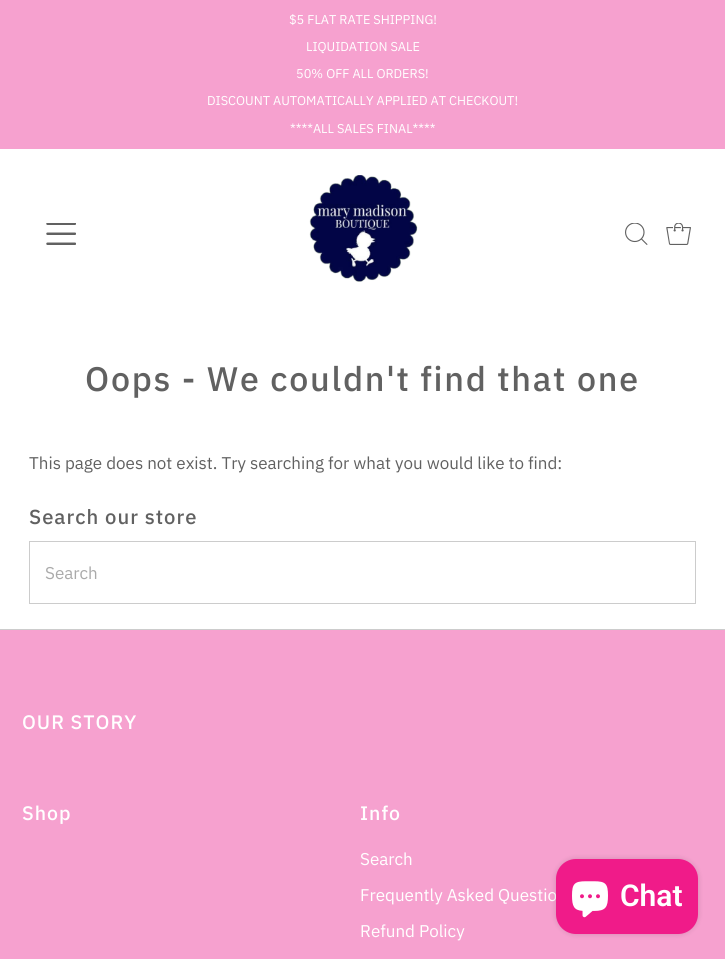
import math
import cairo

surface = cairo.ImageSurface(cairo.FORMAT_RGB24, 725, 959)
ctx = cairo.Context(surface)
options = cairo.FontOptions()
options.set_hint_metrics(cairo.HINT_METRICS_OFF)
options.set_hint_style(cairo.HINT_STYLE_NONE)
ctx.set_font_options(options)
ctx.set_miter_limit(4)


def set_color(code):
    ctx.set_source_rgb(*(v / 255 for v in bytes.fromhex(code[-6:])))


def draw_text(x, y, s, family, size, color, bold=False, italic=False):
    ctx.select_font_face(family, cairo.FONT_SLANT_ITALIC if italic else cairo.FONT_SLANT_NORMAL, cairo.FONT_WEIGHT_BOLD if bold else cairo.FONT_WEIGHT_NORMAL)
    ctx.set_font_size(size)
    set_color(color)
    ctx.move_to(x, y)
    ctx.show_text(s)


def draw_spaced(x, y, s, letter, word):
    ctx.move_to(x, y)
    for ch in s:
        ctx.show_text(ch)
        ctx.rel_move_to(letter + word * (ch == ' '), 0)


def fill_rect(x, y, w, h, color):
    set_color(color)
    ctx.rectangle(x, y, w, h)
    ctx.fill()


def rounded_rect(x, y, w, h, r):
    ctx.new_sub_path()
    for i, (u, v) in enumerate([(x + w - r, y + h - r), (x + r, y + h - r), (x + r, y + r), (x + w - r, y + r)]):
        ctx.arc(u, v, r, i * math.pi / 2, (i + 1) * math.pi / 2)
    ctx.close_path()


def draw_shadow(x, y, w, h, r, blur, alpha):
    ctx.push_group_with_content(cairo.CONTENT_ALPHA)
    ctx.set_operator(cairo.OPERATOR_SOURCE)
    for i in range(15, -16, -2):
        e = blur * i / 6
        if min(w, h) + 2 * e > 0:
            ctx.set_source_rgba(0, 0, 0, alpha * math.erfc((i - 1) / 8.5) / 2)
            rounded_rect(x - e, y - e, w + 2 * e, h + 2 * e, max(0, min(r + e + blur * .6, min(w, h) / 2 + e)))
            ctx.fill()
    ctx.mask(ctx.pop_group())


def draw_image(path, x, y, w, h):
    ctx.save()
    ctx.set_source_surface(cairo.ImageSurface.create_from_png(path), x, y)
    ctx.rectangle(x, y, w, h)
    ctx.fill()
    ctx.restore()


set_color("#ffffff")
ctx.paint()
fill_rect(0, 0, 725, 149, "#f6a1cf")
draw_text(289, 24, "$5 FLAT RATE SHIPPING!", "IBM Plex Sans", 12.75, "#ffffff")
draw_text(306, 51, "LIQUIDATION SALE", "IBM Plex Sans", 12.75, "#ffffff")
draw_text(296, 78, "50% OFF ALL ORDERS!", "IBM Plex Sans", 12.75, "#ffffff")
draw_text(207, 105, "DISCOUNT AUTOMATICALLY APPLIED AT CHECKOUT!", "IBM Plex Sans", 12.75, "#ffffff")
draw_text(290, 133, "****ALL SALES FINAL****", "IBM Plex Sans", 12.75, "#ffffff")
draw_image("assets/img1.png", 46, 223, 30, 22)
draw_image("assets/img2.png", 309, 175, 109, 107)
draw_image("assets/img3.png", 625, 223, 23, 22)
draw_image("assets/img4.png", 666, 223, 25, 22)
ctx.select_font_face("IBM Plex Sans Medium")
ctx.set_font_size(34)
set_color("#616161")
draw_spaced(85, 391, "Oops - We couldn't find that one", 1.7, 0)
draw_text(29, 469, "This page does not exist. Try searching for what you would like to find:", "IBM Plex Sans", 17, "#616161")
ctx.select_font_face("IBM Plex Sans Medium")
ctx.set_font_size(20.25)
draw_spaced(29, 524, "Search our store", 1, 0)
ctx.rectangle(29.5, 541.5, 666, 62)
set_color("#cccccc")
ctx.set_line_width(1)
ctx.stroke()
draw_text(45, 579, "Search", "IBM Plex Sans", 17, "#aaaaaa")
fill_rect(0, 630, 725, 329, "#f6a1cf")
fill_rect(0, 629, 725, 1, "#cccccc")
ctx.select_font_face("IBM Plex Sans Medium")
ctx.set_font_size(19.5)
set_color("#ffffff")
draw_spaced(22, 729, "OUR STORY", 1, 0)
draw_spaced(22, 820, "Shop", 1, 0)
draw_spaced(360, 820, "Info", 1, 0)
draw_text(360, 865, "Search", "IBM Plex Sans", 17, "#ffffff")
draw_text(360, 901, "Frequently Asked Questio", "IBM Plex Sans", 17, "#ffffff")
draw_text(360, 937, "Refund Policy", "IBM Plex Sans", 17, "#ffffff")
set_color("#000000")
draw_shadow(556, 859, 142, 75, 20, 3, 0.15)
set_color("#f01b89")
rounded_rect(556, 859, 142, 75, 20)
ctx.fill()
draw_image("assets/img5.png", 572, 881, 36, 37)
draw_text(620, 906, "Chat", "Roboto SemiBold", 30, "#ffffff")
surface.write_to_png("output.png")
